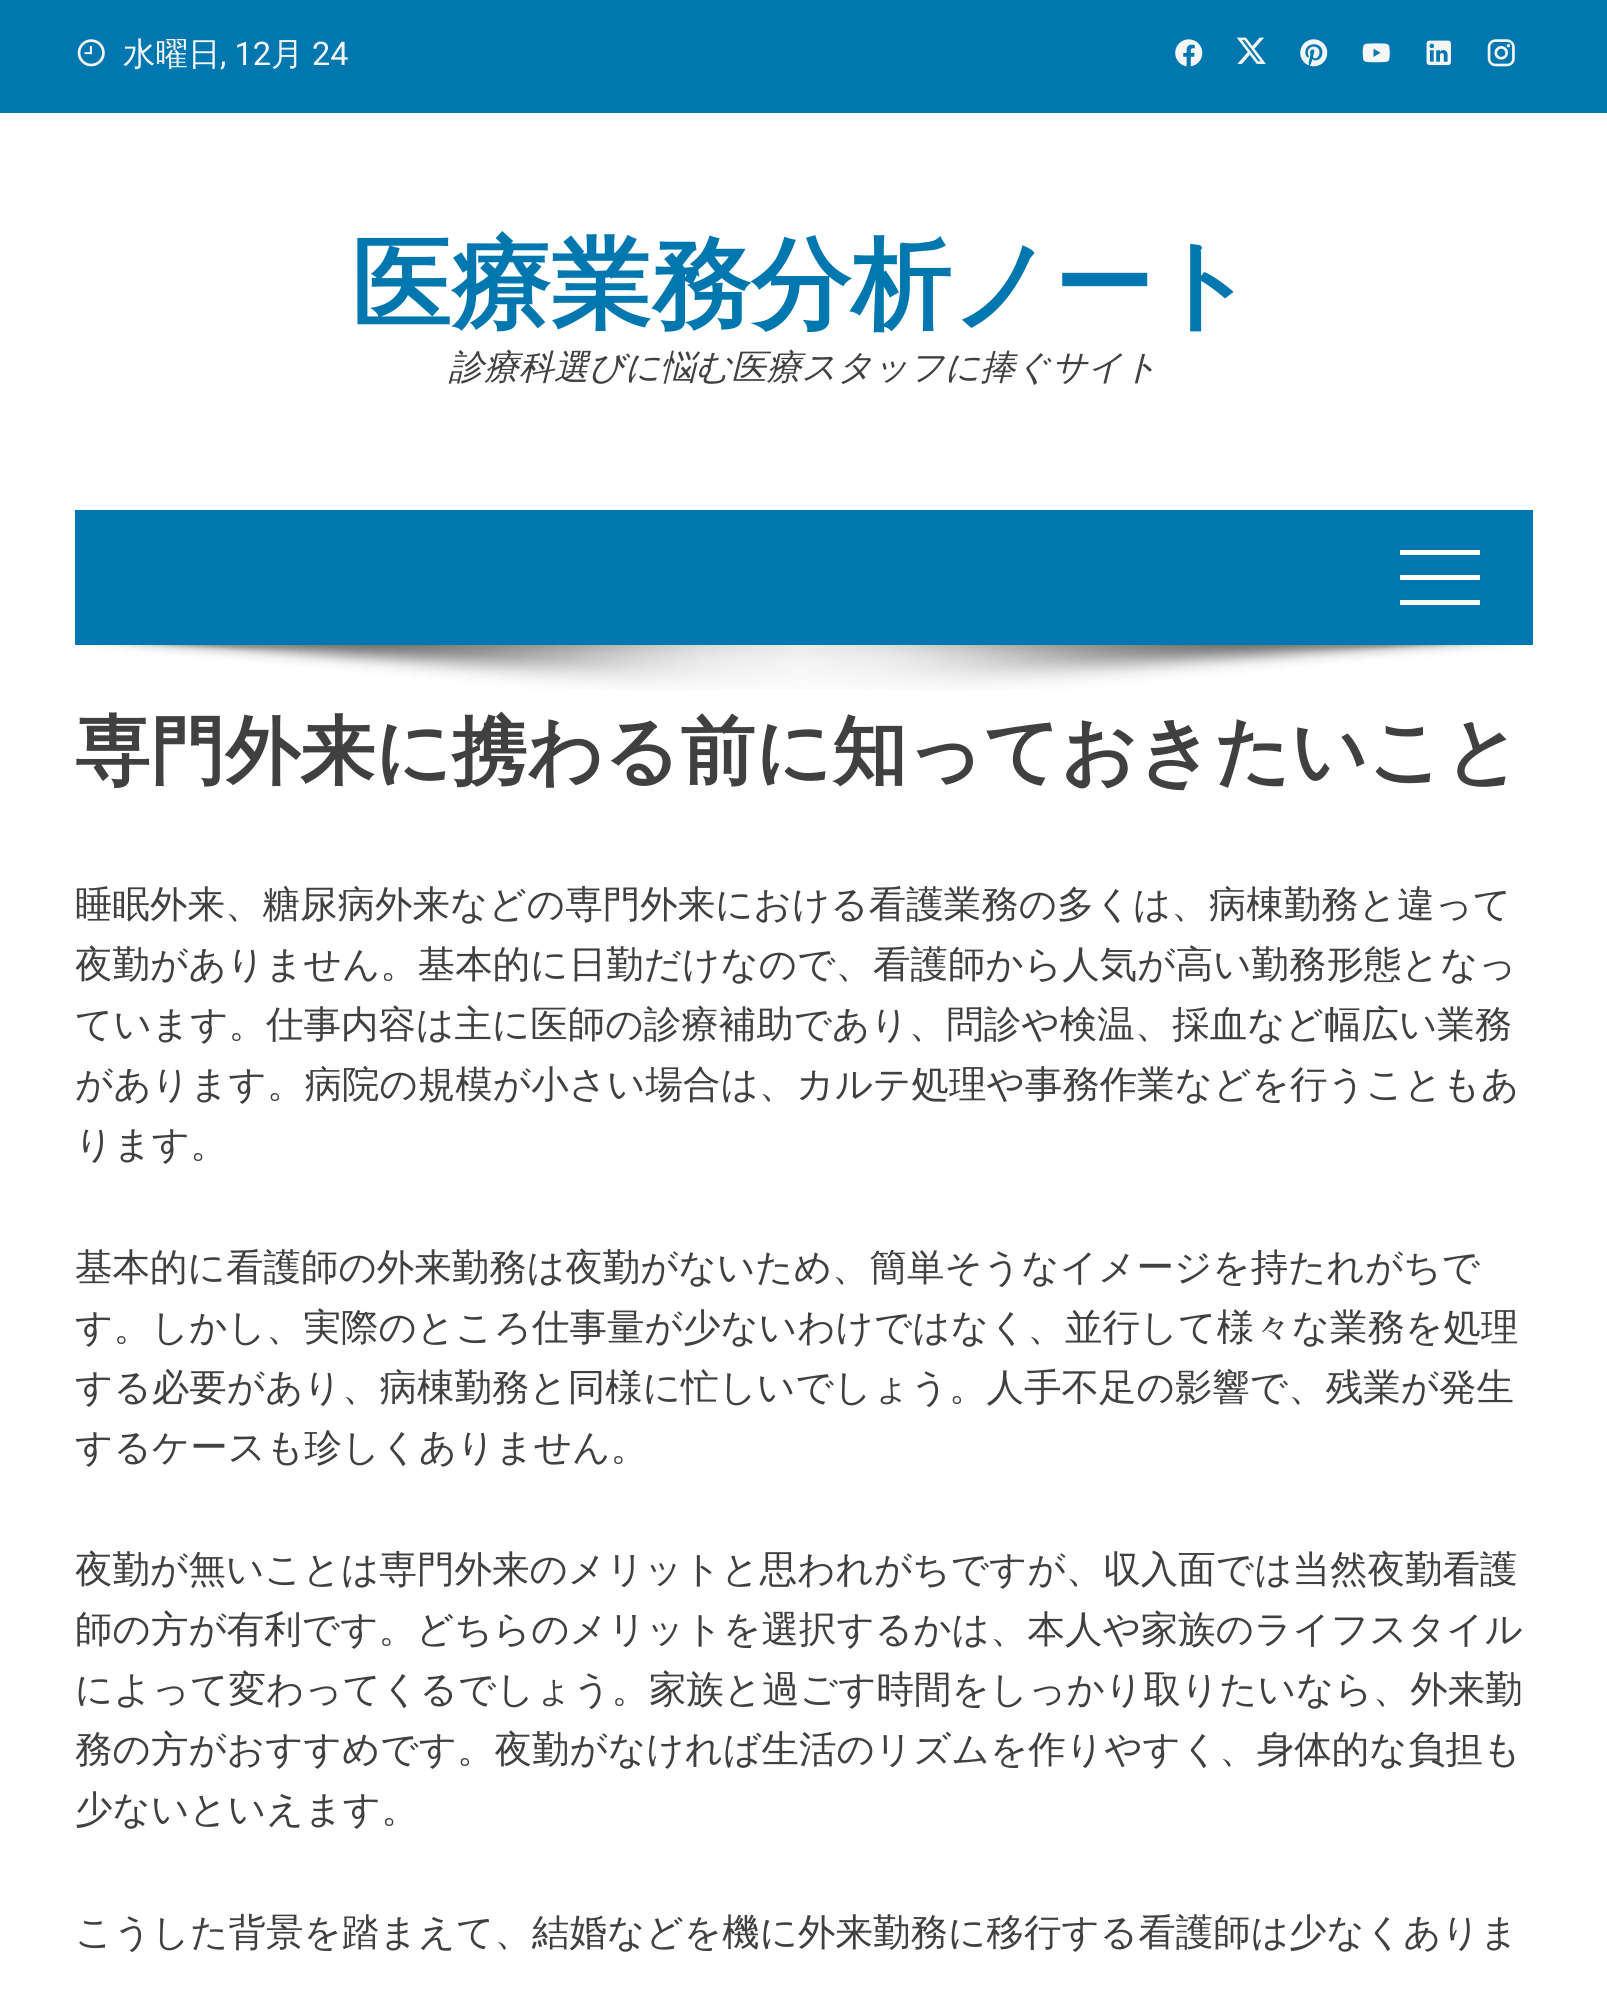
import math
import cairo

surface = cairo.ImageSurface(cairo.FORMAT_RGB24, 1607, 1994)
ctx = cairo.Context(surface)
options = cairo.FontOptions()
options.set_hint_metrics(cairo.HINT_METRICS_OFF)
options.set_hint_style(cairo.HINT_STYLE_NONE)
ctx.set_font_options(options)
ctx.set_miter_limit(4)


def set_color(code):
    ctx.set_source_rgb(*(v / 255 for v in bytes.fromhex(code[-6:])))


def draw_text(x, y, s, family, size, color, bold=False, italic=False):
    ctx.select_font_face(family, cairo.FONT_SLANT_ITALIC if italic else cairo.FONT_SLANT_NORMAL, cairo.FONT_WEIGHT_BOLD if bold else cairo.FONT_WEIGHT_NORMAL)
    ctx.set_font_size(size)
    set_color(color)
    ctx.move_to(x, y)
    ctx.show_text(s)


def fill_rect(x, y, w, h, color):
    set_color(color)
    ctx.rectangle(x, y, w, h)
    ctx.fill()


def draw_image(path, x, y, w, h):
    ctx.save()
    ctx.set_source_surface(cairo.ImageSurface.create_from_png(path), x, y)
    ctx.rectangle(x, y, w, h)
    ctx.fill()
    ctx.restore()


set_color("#ffffff")
ctx.paint()
fill_rect(0, 0, 1607, 113, "#0078af")
draw_image("assets/img1.png", 77, 39, 28, 28)
draw_text(123, 65, "水曜日", "WenQuanYi Zen Hei Medium", 32.5, "#f6f6f6")
draw_text(220, 65, ", 12", "Roboto", 32.5, "#f6f6f6")
draw_text(271, 65, "月", "WenQuanYi Zen Hei Medium", 32.5, "#f6f6f6")
draw_text(312, 65, "24", "Roboto", 32.5, "#f6f6f6")
draw_image("assets/img2.png", 1175, 39, 28, 28)
draw_image("assets/img3.png", 1236, 37, 30, 27)
draw_image("assets/img4.png", 1300, 39, 28, 28)
draw_image("assets/img5.png", 1362, 43, 28, 20)
draw_image("assets/img6.png", 1426, 40, 25, 25)
draw_image("assets/img7.png", 1487, 39, 28, 28)
draw_text(351, 319, "医療業務分析ノート", "WenQuanYi Zen Hei", 100, "#0078af", bold=True)
draw_text(449, 379, "診療科選びに悩む医療スタッフに捧ぐサイト", "WenQuanYi Zen Hei Medium", 35, "#404040", italic=True)
fill_rect(75, 510, 1458, 135, "#0078af")
fill_rect(1400, 550, 80, 5, "#ffffff")
fill_rect(1400, 600, 80, 5, "#ffffff")
fill_rect(1400, 575, 80, 5, "#ffffff")
draw_image("assets/img8.png", 95, 645, 1416, 45)
draw_text(75, 777, "専門外来に携わる前に知っておきたいこと", "WenQuanYi Zen Hei", 75, "#404040", bold=True)
draw_text(75, 917, "睡眠外来、糖尿病外来などの専門外来における看護業務の多くは、病棟勤務と違って", "WenQuanYi Zen Hei Medium", 37.5, "#404040")
draw_text(75, 977, "夜勤がありません。基本的に日勤だけなので、看護師から人気が高い勤務形態となっ", "WenQuanYi Zen Hei Medium", 37.5, "#404040")
draw_text(75, 1037, "ています。仕事内容は主に医師の診療補助であり、問診や検温、採血など幅広い業務", "WenQuanYi Zen Hei Medium", 37.5, "#404040")
draw_text(75, 1097, "があります。病院の規模が小さい場合は、カルテ処理や事務作業などを行うこともあ", "WenQuanYi Zen Hei Medium", 37.5, "#404040")
draw_text(75, 1157, "ります。", "WenQuanYi Zen Hei Medium", 37.5, "#404040")
draw_text(75, 1280, "基本的に看護師の外来勤務は夜勤がないため、簡単そうなイメージを持たれがちで", "WenQuanYi Zen Hei Medium", 37.5, "#404040")
draw_text(75, 1340, "す。しかし、実際のところ仕事量が少ないわけではなく、並行して様々な業務を処理", "WenQuanYi Zen Hei Medium", 37.5, "#404040")
draw_text(75, 1400, "する必要があり、病棟勤務と同様に忙しいでしょう。人手不足の影響で、残業が発生", "WenQuanYi Zen Hei Medium", 37.5, "#404040")
draw_text(75, 1460, "するケースも珍しくありません。", "WenQuanYi Zen Hei Medium", 37.5, "#404040")
draw_text(75, 1582, "夜勤が無いことは専門外来のメリットと思われがちですが、収入面では当然夜勤看護", "WenQuanYi Zen Hei Medium", 37.5, "#404040")
draw_text(75, 1642, "師の方が有利です。どちらのメリットを選択するかは、本人や家族のライフスタイル", "WenQuanYi Zen Hei Medium", 37.5, "#404040")
draw_text(75, 1702, "によって変わってくるでしょう。家族と過ごす時間をしっかり取りたいなら、外来勤", "WenQuanYi Zen Hei Medium", 37.5, "#404040")
draw_text(75, 1762, "務の方がおすすめです。夜勤がなければ生活のリズムを作りやすく、身体的な負担も", "WenQuanYi Zen Hei Medium", 37.5, "#404040")
draw_text(75, 1822, "少ないといえます。", "WenQuanYi Zen Hei Medium", 37.5, "#404040")
draw_text(75, 1945, "こうした背景を踏まえて、結婚などを機に外来勤務に移行する看護師は少なくありま", "WenQuanYi Zen Hei Medium", 37.5, "#404040")
surface.write_to_png("output.png")
